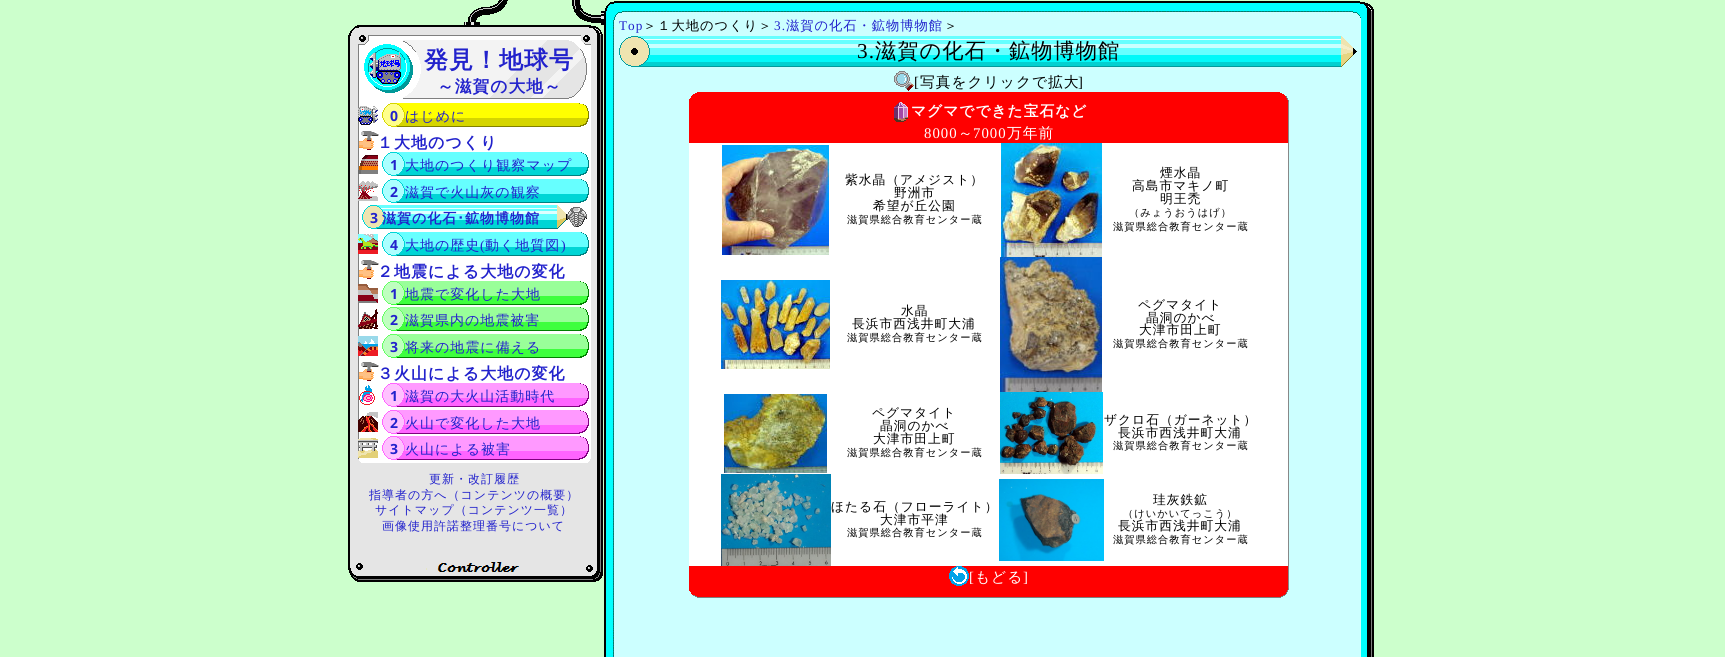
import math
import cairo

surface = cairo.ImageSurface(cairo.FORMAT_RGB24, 1725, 657)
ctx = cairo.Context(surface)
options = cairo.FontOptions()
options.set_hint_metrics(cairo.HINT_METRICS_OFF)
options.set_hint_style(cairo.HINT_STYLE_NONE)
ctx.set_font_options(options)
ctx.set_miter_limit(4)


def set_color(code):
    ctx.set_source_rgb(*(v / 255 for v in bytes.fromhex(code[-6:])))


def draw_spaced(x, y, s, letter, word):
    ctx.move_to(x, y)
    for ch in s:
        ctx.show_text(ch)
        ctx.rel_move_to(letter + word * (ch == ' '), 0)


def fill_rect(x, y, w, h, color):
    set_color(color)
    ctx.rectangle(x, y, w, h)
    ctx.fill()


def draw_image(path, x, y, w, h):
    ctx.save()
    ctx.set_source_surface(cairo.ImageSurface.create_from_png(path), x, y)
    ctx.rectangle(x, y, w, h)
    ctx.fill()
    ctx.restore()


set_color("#ccffcc")
ctx.paint()
draw_image("assets/img1.png", 348, 0, 256, 582)
draw_image("assets/img2.png", 364, 44, 49, 49)
ctx.select_font_face("WenQuanYi Zen Hei", cairo.FONT_SLANT_NORMAL, cairo.FONT_WEIGHT_BOLD)
ctx.set_font_size(24)
set_color("#2222cc")
draw_spaced(424, 68, "発見！地球号", 1, 0)
ctx.set_font_size(16.75)
draw_spaced(437, 92, "～滋賀の大地～", 1, 0)
draw_image("assets/img3.png", 382, 103, 207, 24)
draw_image("assets/img4.png", 358, 106, 20, 19)
ctx.select_font_face("Noto Sans", cairo.FONT_SLANT_NORMAL, cairo.FONT_WEIGHT_BOLD)
ctx.set_font_size(14)
draw_spaced(390, 121, "0", 1, 0)
ctx.select_font_face("WenQuanYi Zen Hei Medium")
draw_spaced(405, 121, "はじめに", 1, 0)
draw_image("assets/img5.png", 359, 131, 20, 19)
ctx.select_font_face("WenQuanYi Zen Hei", cairo.FONT_SLANT_NORMAL, cairo.FONT_WEIGHT_BOLD)
ctx.set_font_size(16)
draw_spaced(377, 148, "１大地のつくり", 1, 0)
draw_image("assets/img6.png", 382, 152, 207, 24)
draw_image("assets/img7.png", 358, 155, 20, 19)
ctx.select_font_face("Noto Sans", cairo.FONT_SLANT_NORMAL, cairo.FONT_WEIGHT_BOLD)
ctx.set_font_size(14)
draw_spaced(390, 170, "1", 1, 0)
ctx.select_font_face("WenQuanYi Zen Hei Medium")
draw_spaced(405, 170, "大地のつくり観察マップ", 1, 0)
draw_image("assets/img6.png", 382, 179, 207, 24)
draw_image("assets/img8.png", 358, 181, 20, 20)
ctx.select_font_face("Noto Sans", cairo.FONT_SLANT_NORMAL, cairo.FONT_WEIGHT_BOLD)
draw_spaced(390, 197, "2", 1, 0)
ctx.select_font_face("WenQuanYi Zen Hei Medium")
draw_spaced(405, 197, "滋賀で火山灰の観察", 1, 0)
draw_image("assets/img9.png", 362, 205, 205, 24)
ctx.select_font_face("Noto Sans", cairo.FONT_SLANT_NORMAL, cairo.FONT_WEIGHT_BOLD)
draw_spaced(370, 223, "3", 1, 0)
ctx.select_font_face("WenQuanYi Zen Hei", cairo.FONT_SLANT_NORMAL, cairo.FONT_WEIGHT_BOLD)
draw_spaced(382, 223, "滋賀の化石", 1, 0)
ctx.select_font_face("IPAPGothic", cairo.FONT_SLANT_NORMAL, cairo.FONT_WEIGHT_BOLD)
draw_spaced(457, 223, "･", 1, 0)
ctx.select_font_face("WenQuanYi Zen Hei", cairo.FONT_SLANT_NORMAL, cairo.FONT_WEIGHT_BOLD)
draw_spaced(465, 223, "鉱物博物館", 1, 0)
draw_image("assets/img10.png", 567, 207, 20, 20)
draw_image("assets/img6.png", 382, 232, 207, 24)
draw_image("assets/img11.png", 358, 234, 20, 20)
ctx.select_font_face("Noto Sans", cairo.FONT_SLANT_NORMAL, cairo.FONT_WEIGHT_BOLD)
draw_spaced(390, 250, "4", 1, 0)
ctx.select_font_face("WenQuanYi Zen Hei Medium")
draw_spaced(405, 250, "大地の歴史", 1, 0)
ctx.select_font_face("Liberation Serif")
draw_spaced(480, 250, "(", 1, 0)
ctx.select_font_face("WenQuanYi Zen Hei Medium")
draw_spaced(485, 250, "動く地質図", 1, 0)
ctx.select_font_face("Liberation Serif")
draw_spaced(561, 250, ")", 1, 0)
draw_image("assets/img5.png", 359, 260, 20, 19)
ctx.select_font_face("WenQuanYi Zen Hei", cairo.FONT_SLANT_NORMAL, cairo.FONT_WEIGHT_BOLD)
ctx.set_font_size(16)
draw_spaced(377, 277, "２地震による大地の変化", 1, 0)
draw_image("assets/img12.png", 382, 281, 207, 24)
draw_image("assets/img13.png", 358, 284, 20, 19)
ctx.select_font_face("Noto Sans", cairo.FONT_SLANT_NORMAL, cairo.FONT_WEIGHT_BOLD)
ctx.set_font_size(14)
draw_spaced(390, 299, "1", 1, 0)
ctx.select_font_face("WenQuanYi Zen Hei Medium")
draw_spaced(405, 299, "地震で変化した大地", 1, 0)
draw_image("assets/img12.png", 382, 307, 207, 24)
draw_image("assets/img14.png", 358, 309, 20, 20)
ctx.select_font_face("Noto Sans", cairo.FONT_SLANT_NORMAL, cairo.FONT_WEIGHT_BOLD)
draw_spaced(390, 325, "2", 1, 0)
ctx.select_font_face("WenQuanYi Zen Hei Medium")
draw_spaced(405, 325, "滋賀県内の地震被害", 1, 0)
draw_image("assets/img12.png", 382, 334, 207, 24)
draw_image("assets/img15.png", 358, 336, 20, 20)
ctx.select_font_face("Noto Sans", cairo.FONT_SLANT_NORMAL, cairo.FONT_WEIGHT_BOLD)
draw_spaced(390, 352, "3", 1, 0)
ctx.select_font_face("WenQuanYi Zen Hei Medium")
draw_spaced(405, 352, "将来の地震に備える", 1, 0)
draw_image("assets/img5.png", 359, 362, 20, 19)
ctx.select_font_face("WenQuanYi Zen Hei", cairo.FONT_SLANT_NORMAL, cairo.FONT_WEIGHT_BOLD)
ctx.set_font_size(16)
draw_spaced(377, 379, "３火山による大地の変化", 1, 0)
draw_image("assets/img16.png", 382, 383, 207, 24)
draw_image("assets/img17.png", 359, 385, 16, 20)
ctx.select_font_face("Noto Sans", cairo.FONT_SLANT_NORMAL, cairo.FONT_WEIGHT_BOLD)
ctx.set_font_size(14)
draw_spaced(390, 401, "1", 1, 0)
ctx.select_font_face("WenQuanYi Zen Hei Medium")
draw_spaced(405, 401, "滋賀の大火山活動時代", 1, 0)
draw_image("assets/img16.png", 382, 410, 207, 24)
draw_image("assets/img18.png", 358, 412, 20, 20)
ctx.select_font_face("Noto Sans", cairo.FONT_SLANT_NORMAL, cairo.FONT_WEIGHT_BOLD)
draw_spaced(390, 428, "2", 1, 0)
ctx.select_font_face("WenQuanYi Zen Hei Medium")
draw_spaced(405, 428, "火山で変化した大地", 1, 0)
draw_image("assets/img16.png", 382, 436, 207, 24)
draw_image("assets/img19.png", 358, 438, 20, 20)
ctx.select_font_face("Noto Sans", cairo.FONT_SLANT_NORMAL, cairo.FONT_WEIGHT_BOLD)
draw_spaced(390, 454, "3", 1, 0)
ctx.select_font_face("WenQuanYi Zen Hei Medium")
draw_spaced(405, 454, "火山による被害", 1, 0)
ctx.set_font_size(12)
draw_spaced(429, 483, "更新・改訂履歴", 1, 0)
draw_spaced(369, 499, "指導者の方へ（コンテンツの概要）", 1, 0)
draw_spaced(375, 514, "サイトマップ（コンテンツ一覧）", 1, 0)
draw_spaced(382, 530, "画像使用許諾整理番号について", 1, 0)
draw_image("assets/img20.png", 604, 1, 770, 656)
ctx.select_font_face("Liberation Serif")
ctx.set_font_size(13.25)
draw_spaced(619, 30, "Top", 1, 0)
ctx.select_font_face("WenQuanYi Zen Hei Medium")
set_color("#000000")
draw_spaced(643, 30, "＞１大地のつくり＞", 1, 0)
ctx.select_font_face("Liberation Serif")
set_color("#2222cc")
draw_spaced(774, 30, "3.", 1, 0)
ctx.select_font_face("WenQuanYi Zen Hei Medium")
draw_spaced(786, 30, "滋賀の化石・鉱物博物館", 1, 0)
set_color("#000000")
draw_spaced(944, 30, "＞", 1, 0)
draw_image("assets/img21.png", 613, 36, 1, 592)
draw_image("assets/img22.png", 619, 36, 738, 31)
ctx.select_font_face("Liberation Serif")
ctx.set_font_size(21.25)
draw_spaced(857, 58, "3.", 1, 0)
ctx.select_font_face("WenQuanYi Zen Hei Medium")
draw_spaced(875, 58, "滋賀の化石・鉱物博物館", 1, 0)
draw_image("assets/img23.png", 894, 71, 20, 20)
ctx.select_font_face("Liberation Serif")
ctx.set_font_size(14.75)
draw_spaced(914, 87, "[", 1, 0)
ctx.select_font_face("WenQuanYi Zen Hei Medium")
draw_spaced(920, 87, "写真をクリックで拡大", 1, 0)
ctx.select_font_face("Liberation Serif")
draw_spaced(1078, 87, "]", 1, 0)
draw_image("assets/img24.png", 689, 92, 600, 10)
draw_image("assets/img25.png", 689, 588, 600, 10)
fill_rect(689, 102, 599, 41, "#ff0000")
fill_rect(1288, 102, 1, 486, "#888888")
draw_image("assets/img26.png", 894, 102, 14, 20)
ctx.select_font_face("WenQuanYi Zen Hei", cairo.FONT_SLANT_NORMAL, cairo.FONT_WEIGHT_BOLD)
set_color("#ffffff")
draw_spaced(911, 116, "マグマでできた宝石など", 1, 0)
ctx.select_font_face("Liberation Serif")
draw_spaced(924, 138, "8000", 1, 0)
ctx.select_font_face("WenQuanYi Zen Hei Medium")
draw_spaced(958, 138, "～", 1, 0)
ctx.select_font_face("Liberation Serif")
draw_spaced(973, 138, "7000", 1, 0)
ctx.select_font_face("WenQuanYi Zen Hei Medium")
draw_spaced(1007, 138, "万年前", 1, 0)
fill_rect(689, 143, 599, 423, "#ffffff")
draw_image("assets/img27.png", 722, 145, 107, 110)
ctx.set_font_size(12.75)
set_color("#000000")
draw_spaced(845, 184, "紫水晶（アメジスト）", 1, 0)
draw_spaced(894, 197, "野洲市", 1, 0)
draw_spaced(873, 210, "希望が丘公園", 1, 0)
ctx.set_font_size(10.25)
draw_spaced(847, 223, "滋賀県総合教育センター蔵", 1, 0)
draw_image("assets/img28.png", 1001, 143, 101, 114)
ctx.set_font_size(12.75)
draw_spaced(1160, 177, "煙水晶", 1, 0)
draw_spaced(1132, 190, "高島市マキノ町", 1, 0)
draw_spaced(1160, 203, "明王禿", 1, 0)
ctx.set_font_size(10.25)
draw_spaced(1129, 216, "（みょうおうはげ）", 1, 0)
draw_spaced(1113, 230, "滋賀県総合教育センター蔵", 1, 0)
draw_image("assets/img29.png", 721, 280, 109, 89)
ctx.set_font_size(12.75)
draw_spaced(901, 315, "水晶", 1, 0)
draw_spaced(852, 328, "長浜市西浅井町大浦", 1, 0)
ctx.set_font_size(10.25)
draw_spaced(847, 341, "滋賀県総合教育センター蔵", 1, 0)
draw_image("assets/img30.png", 1000, 257, 102, 135)
ctx.set_font_size(12.75)
draw_spaced(1138, 309, "ペグマタイト", 1, 0)
draw_spaced(1146, 322, "晶洞のかべ", 1, 0)
draw_spaced(1139, 334, "大津市田上町", 1, 0)
ctx.set_font_size(10.25)
draw_spaced(1113, 347, "滋賀県総合教育センター蔵", 1, 0)
draw_image("assets/img31.png", 724, 394, 103, 79)
ctx.set_font_size(12.75)
draw_spaced(872, 417, "ペグマタイト", 1, 0)
draw_spaced(880, 430, "晶洞のかべ", 1, 0)
draw_spaced(873, 443, "大津市田上町", 1, 0)
ctx.set_font_size(10.25)
draw_spaced(847, 456, "滋賀県総合教育センター蔵", 1, 0)
draw_image("assets/img32.png", 1000, 392, 103, 82)
ctx.set_font_size(12.75)
draw_spaced(1104, 424, "ザクロ石（ガーネット）", 1, 0)
draw_spaced(1118, 437, "長浜市西浅井町大浦", 1, 0)
ctx.set_font_size(10.25)
draw_spaced(1113, 449, "滋賀県総合教育センター蔵", 1, 0)
draw_image("assets/img33.png", 721, 474, 110, 92)
ctx.set_font_size(12.75)
draw_spaced(831, 511, "ほたる石（フローライト）", 1, 0)
draw_spaced(880, 524, "大津市平津", 1, 0)
ctx.set_font_size(10.25)
draw_spaced(847, 536, "滋賀県総合教育センター蔵", 1, 0)
draw_image("assets/img34.png", 999, 479, 105, 82)
ctx.set_font_size(12.75)
draw_spaced(1153, 504, "珪灰鉄鉱", 1, 0)
ctx.set_font_size(10.25)
draw_spaced(1123, 517, "（けいかいてっこう）", 1, 0)
ctx.set_font_size(12.75)
draw_spaced(1118, 530, "長浜市西浅井町大浦", 1, 0)
ctx.set_font_size(10.25)
draw_spaced(1113, 543, "滋賀県総合教育センター蔵", 1, 0)
fill_rect(689, 566, 599, 22, "#ff0000")
draw_image("assets/img35.png", 949, 566, 20, 20)
ctx.select_font_face("Liberation Serif")
ctx.set_font_size(14.75)
set_color("#ffffff")
draw_spaced(969, 582, "[", 1, 0)
ctx.select_font_face("WenQuanYi Zen Hei Medium")
draw_spaced(975, 582, "もどる", 1, 0)
ctx.select_font_face("Liberation Serif")
draw_spaced(1023, 582, "]", 1, 0)
surface.write_to_png("output.png")
